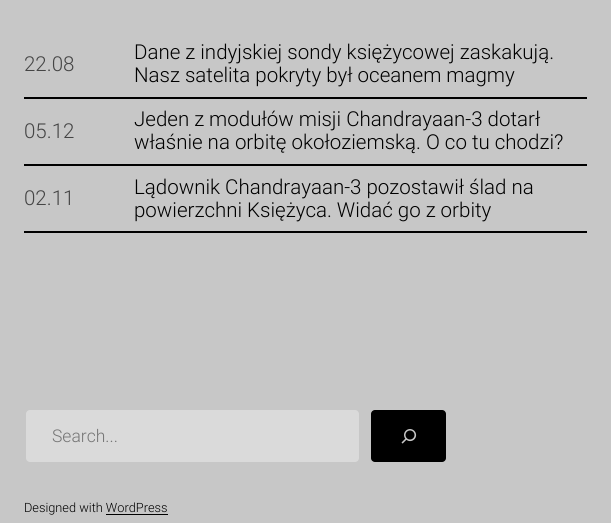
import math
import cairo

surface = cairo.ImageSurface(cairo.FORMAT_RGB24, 611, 523)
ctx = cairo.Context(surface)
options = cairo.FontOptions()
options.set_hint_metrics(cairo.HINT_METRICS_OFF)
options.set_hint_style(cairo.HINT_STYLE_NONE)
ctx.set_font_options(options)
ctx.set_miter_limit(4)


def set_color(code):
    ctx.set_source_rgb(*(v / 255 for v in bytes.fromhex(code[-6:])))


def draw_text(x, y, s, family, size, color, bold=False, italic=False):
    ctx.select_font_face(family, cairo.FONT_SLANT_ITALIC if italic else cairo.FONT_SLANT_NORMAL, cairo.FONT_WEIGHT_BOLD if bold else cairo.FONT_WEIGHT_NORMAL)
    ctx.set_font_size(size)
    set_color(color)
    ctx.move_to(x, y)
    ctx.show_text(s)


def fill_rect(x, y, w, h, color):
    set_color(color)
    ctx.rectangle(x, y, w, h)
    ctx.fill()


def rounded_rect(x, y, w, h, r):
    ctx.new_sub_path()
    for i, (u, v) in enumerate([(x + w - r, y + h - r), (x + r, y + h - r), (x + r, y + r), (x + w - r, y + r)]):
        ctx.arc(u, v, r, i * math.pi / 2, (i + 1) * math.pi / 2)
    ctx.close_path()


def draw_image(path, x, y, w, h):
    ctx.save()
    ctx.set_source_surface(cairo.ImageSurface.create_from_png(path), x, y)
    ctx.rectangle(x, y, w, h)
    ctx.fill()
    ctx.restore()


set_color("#c7c7c7")
ctx.paint()
fill_rect(24, 97, 563, 2, "#000000")
draw_text(24, 71, "22.08", "Roboto Light", 20.5, "#454545")
draw_text(134, 59, "Dane z indyjskiej sondy księżycowej zaskakują.", "Roboto Light", 20.5, "#000000")
draw_text(134, 82, "Nasz satelita pokryty był oceanem magmy", "Roboto Light", 20.5, "#000000")
fill_rect(24, 164, 563, 2, "#000000")
draw_text(24, 138, "05.12", "Roboto Light", 20.5, "#454545")
draw_text(134, 126, "Jeden z modułów misji Chandrayaan-3 dotarł", "Roboto Light", 20.5, "#000000")
draw_text(134, 149, "właśnie na orbitę okołoziemską. O co tu chodzi?", "Roboto Light", 20.5, "#000000")
fill_rect(24, 231, 563, 2, "#000000")
draw_text(24, 205, "02.11", "Roboto Light", 20.5, "#454545")
draw_text(134, 194, "Lądownik Chandrayaan-3 pozostawił ślad na", "Roboto Light", 20.5, "#000000")
draw_text(134, 217, "powierzchni Księżyca. Widać go z orbity", "Roboto Light", 20.5, "#000000")
set_color("#dadada")
rounded_rect(26, 410, 333, 52, 4)
ctx.fill()
draw_text(52, 442, "Search...", "Roboto Light", 17.5, "#757575")
set_color("#000000")
rounded_rect(371, 410, 75, 52, 4)
ctx.fill()
draw_image("assets/img1.png", 401, 429, 16, 15)
draw_text(24, 512, "Designed with WordPress", "Roboto Light", 12.75, "#000000")
fill_rect(106, 514, 62, 1, "#000000")
surface.write_to_png("output.png")
